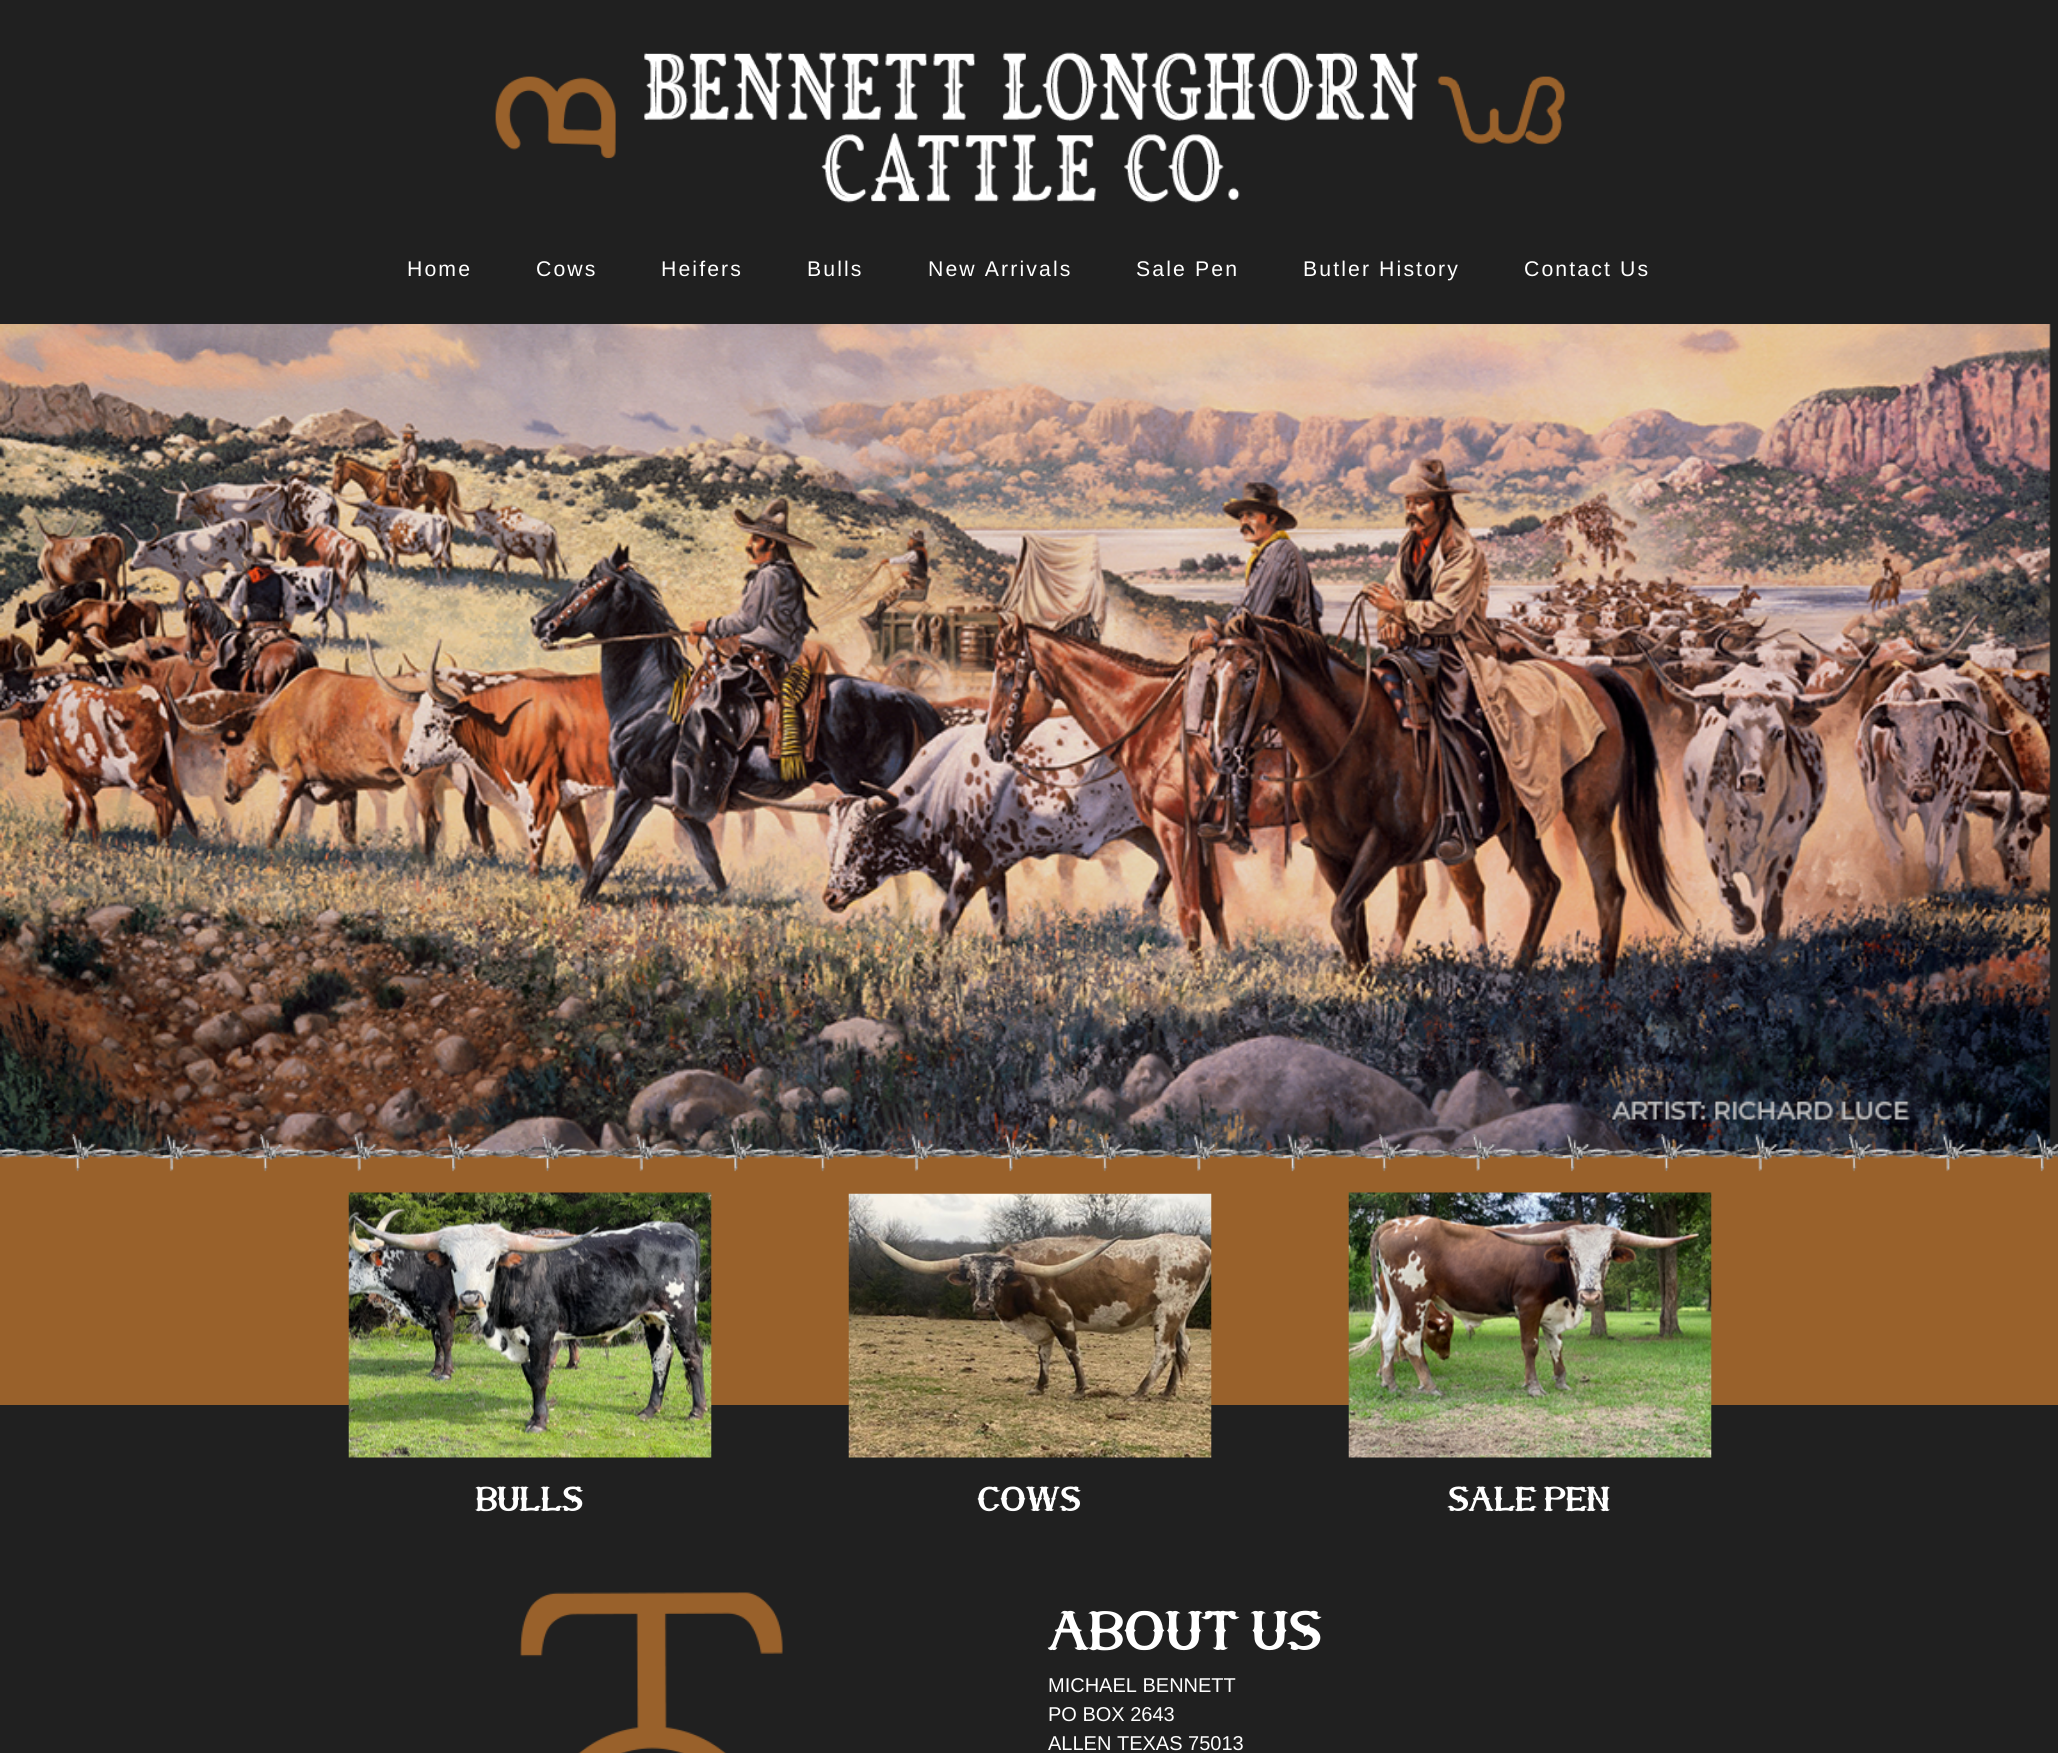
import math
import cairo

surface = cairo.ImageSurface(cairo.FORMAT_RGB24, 2058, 1753)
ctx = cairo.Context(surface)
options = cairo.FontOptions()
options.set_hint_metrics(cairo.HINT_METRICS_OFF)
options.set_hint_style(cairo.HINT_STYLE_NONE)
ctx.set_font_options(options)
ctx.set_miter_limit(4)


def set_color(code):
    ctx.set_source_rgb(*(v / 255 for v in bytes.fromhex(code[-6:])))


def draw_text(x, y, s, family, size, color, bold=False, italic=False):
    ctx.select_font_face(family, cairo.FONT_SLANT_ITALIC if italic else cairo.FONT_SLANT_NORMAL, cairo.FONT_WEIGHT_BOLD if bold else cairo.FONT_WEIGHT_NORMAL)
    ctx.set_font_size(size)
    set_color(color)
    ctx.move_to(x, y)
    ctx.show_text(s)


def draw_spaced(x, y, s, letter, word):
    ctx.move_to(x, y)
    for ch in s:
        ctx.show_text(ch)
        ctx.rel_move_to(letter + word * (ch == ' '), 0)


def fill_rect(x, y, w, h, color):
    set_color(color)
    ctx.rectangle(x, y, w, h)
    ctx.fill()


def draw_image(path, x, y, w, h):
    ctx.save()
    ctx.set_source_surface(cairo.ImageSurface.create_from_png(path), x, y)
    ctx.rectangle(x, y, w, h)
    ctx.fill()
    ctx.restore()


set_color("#202020")
ctx.paint()
draw_image("assets/img1.png", 495, 52, 1071, 151)
ctx.select_font_face("Liberation Sans")
ctx.set_font_size(21.25)
set_color("#ffffff")
draw_spaced(407, 276, "Home", 2.1, 0)
draw_spaced(536, 276, "Cows", 2.1, 0)
draw_spaced(661, 276, "Heifers", 2.1, 0)
draw_spaced(807, 276, "Bulls", 2.1, 0)
draw_spaced(928, 276, "New Arrivals", 2.1, 0)
draw_spaced(1136, 276, "Sale Pen", 2.1, 0)
draw_spaced(1303, 276, "Butler History", 2.1, 0)
draw_spaced(1524, 276, "Contact Us", 2.1, 0)
draw_image("assets/img2.png", 0, 324, 2051, 831)
fill_rect(0, 1155, 2058, 250, "#99612b")
draw_image("assets/img3.png", 0, 1134, 2058, 38)
draw_image("assets/img4.png", 348, 1192, 364, 266)
ctx.select_font_face("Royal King", cairo.FONT_SLANT_NORMAL, cairo.FONT_WEIGHT_BOLD)
ctx.set_font_size(31.25)
set_color("#ffffff")
draw_spaced(476, 1511, "BULLS", 1.5, 0)
draw_image("assets/img5.png", 848, 1193, 364, 265)
draw_spaced(977, 1511, "COWS", 1.5, 0)
draw_image("assets/img6.png", 1348, 1192, 364, 266)
draw_spaced(1448, 1511, "SALE PEN", 1.5, 0)
draw_image("assets/img7.png", 520, 1592, 263, 161)
ctx.set_font_size(50)
draw_spaced(1048, 1650, "ABOUT US", 2.5, 0)
draw_text(1048, 1692, "MICHAEL BENNETT", "Liberation Sans", 20, "#ffffff")
draw_text(1048, 1721, "PO BOX 2643", "Liberation Sans", 20, "#ffffff")
draw_text(1048, 1750, "ALLEN TEXAS 75013", "Liberation Sans", 20, "#ffffff")
surface.write_to_png("output.png")
